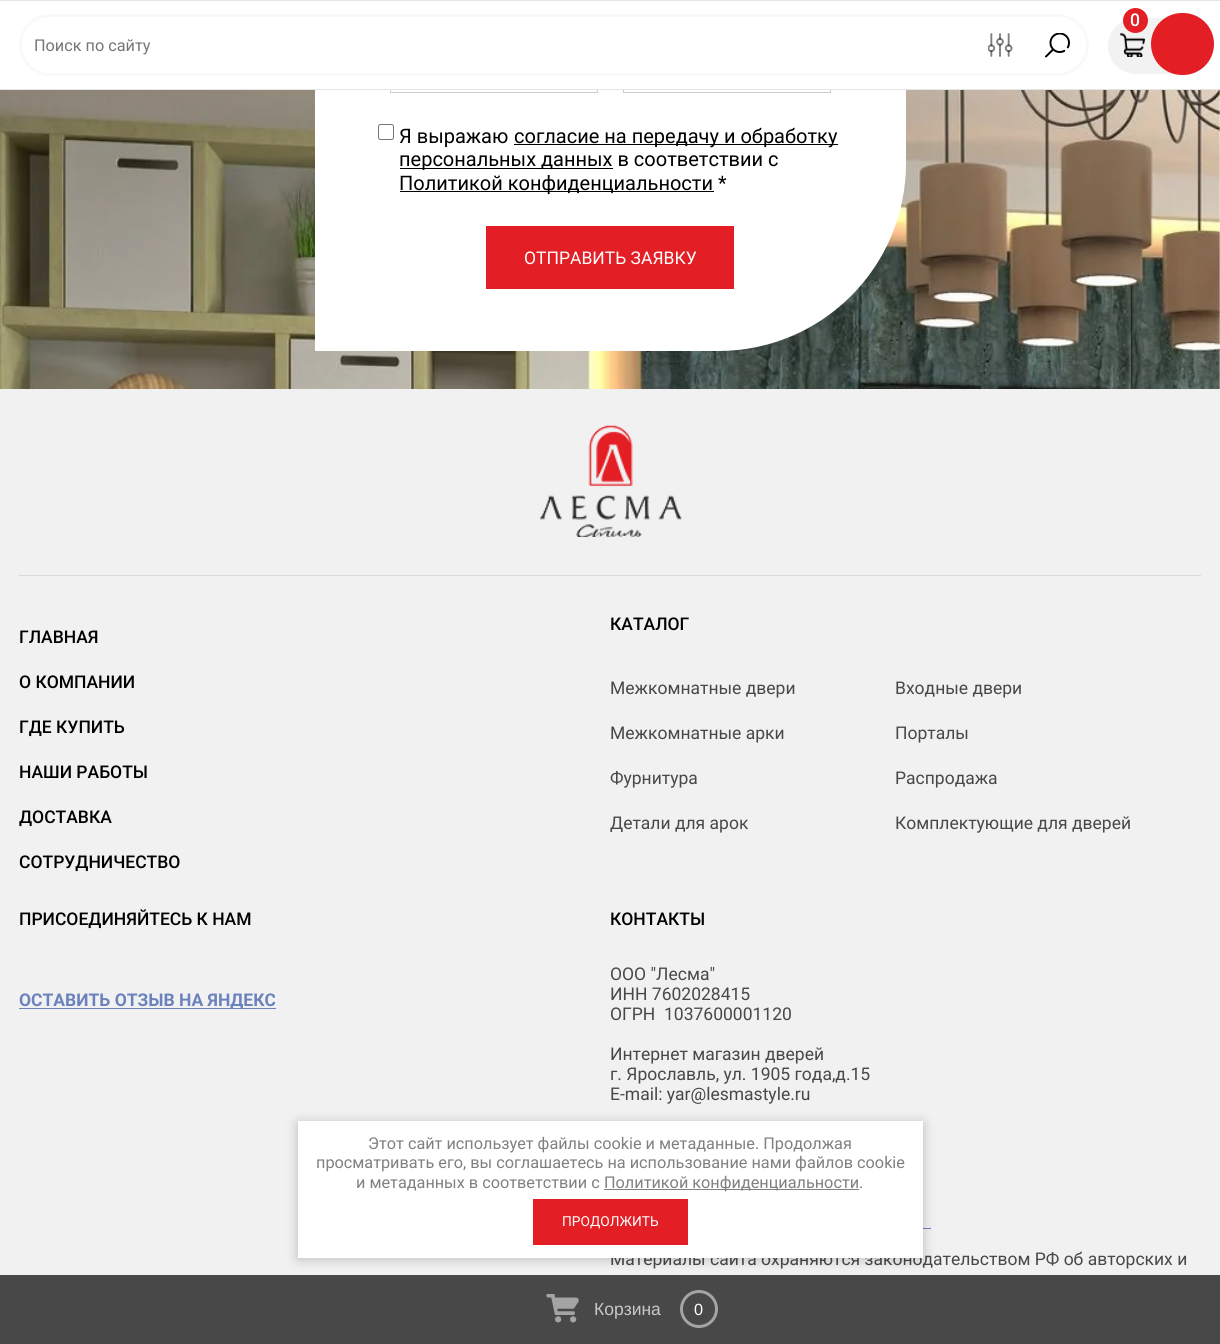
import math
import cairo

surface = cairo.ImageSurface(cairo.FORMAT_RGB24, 1220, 1344)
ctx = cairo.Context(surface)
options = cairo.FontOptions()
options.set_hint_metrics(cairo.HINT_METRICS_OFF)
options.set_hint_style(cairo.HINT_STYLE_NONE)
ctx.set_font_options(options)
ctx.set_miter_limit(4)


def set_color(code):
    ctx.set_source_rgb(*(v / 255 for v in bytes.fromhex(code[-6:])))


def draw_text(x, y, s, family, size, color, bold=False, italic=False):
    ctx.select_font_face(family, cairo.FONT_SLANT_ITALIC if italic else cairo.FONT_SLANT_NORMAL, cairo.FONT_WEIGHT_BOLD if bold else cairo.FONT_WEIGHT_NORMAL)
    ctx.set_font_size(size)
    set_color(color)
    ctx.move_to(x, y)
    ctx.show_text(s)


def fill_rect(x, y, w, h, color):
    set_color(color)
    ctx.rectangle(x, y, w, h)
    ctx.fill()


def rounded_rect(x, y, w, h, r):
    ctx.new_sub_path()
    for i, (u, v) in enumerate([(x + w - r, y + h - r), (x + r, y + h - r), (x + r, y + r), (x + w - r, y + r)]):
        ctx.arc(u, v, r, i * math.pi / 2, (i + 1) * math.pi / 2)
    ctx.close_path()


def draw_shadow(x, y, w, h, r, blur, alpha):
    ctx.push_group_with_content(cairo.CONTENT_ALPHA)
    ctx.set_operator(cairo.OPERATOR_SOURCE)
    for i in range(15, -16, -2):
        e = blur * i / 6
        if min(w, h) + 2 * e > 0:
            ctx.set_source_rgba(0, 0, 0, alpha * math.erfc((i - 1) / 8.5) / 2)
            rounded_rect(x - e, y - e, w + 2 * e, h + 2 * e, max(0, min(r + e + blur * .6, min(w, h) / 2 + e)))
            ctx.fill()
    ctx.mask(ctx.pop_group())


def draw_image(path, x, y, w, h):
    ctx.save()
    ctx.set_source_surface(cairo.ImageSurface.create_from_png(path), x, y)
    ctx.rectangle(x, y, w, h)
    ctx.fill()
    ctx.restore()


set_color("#ffffff")
ctx.paint()
draw_image("assets/img4.png", 0, 90, 1220, 299)
set_color("#ffffff")
ctx.new_path()
ctx.move_to(503, -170)
ctx.line_to(906, -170)
ctx.line_to(906, 163)
ctx.curve_to(906, 267, 822, 351, 718, 351)
ctx.line_to(315, 351)
ctx.line_to(315, 18)
ctx.curve_to(315, -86, 399, -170, 503, -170)
ctx.close_path()
ctx.fill()
ctx.rectangle(390.5, 30.5, 207, 62)
set_color("#cccccc")
ctx.set_line_width(1)
ctx.stroke()
ctx.rectangle(623.5, 30.5, 207, 62)
ctx.stroke()
fill_rect(390, 30, 441, 59, "#ffffff")
fill_rect(0, 0, 1220, 1, "#e5e5e5")
fill_rect(0, 89, 1220, 1, "#e5e5e5")
set_color("#f2f2f2")
rounded_rect(1108, 18, 93, 56, 28)
ctx.fill()
draw_image("assets/img1.png", 1120, 32, 25, 25)
set_color("#e31e24")
ctx.arc(1135.5, 20.5, 12.5, 0, 2 * math.pi)
ctx.fill()
draw_text(1130, 26, "0", "Roboto Medium", 17.5, "#ffffff")
rounded_rect(20.5, 15.5, 1067, 59, 29.5)
set_color("#f9f9fa")
ctx.set_line_width(3)
ctx.stroke()
draw_text(34, 51, "Поиск по сайту", "Roboto", 16.25, "#757575")
draw_image("assets/img2.png", 1045, 33, 25, 25)
draw_image("assets/img3.png", 988, 33, 25, 24)
set_color("#e31e24")
rounded_rect(1151, 13, 63, 62, 31)
ctx.fill()
rounded_rect(378.5, 124.5, 15, 15, 2)
set_color("#767676")
ctx.set_line_width(1)
ctx.stroke()
draw_text(399, 143, "Я выражаю", "Roboto", 20, "#000000")
fill_rect(514, 144, 324, 1, "#000000")
draw_text(514, 143, "согласие на передачу и обработку", "Roboto", 20, "#000000")
fill_rect(400, 168, 213, 1, "#000000")
draw_text(399, 166, "персональных данных в соответствии с", "Roboto", 20, "#000000")
fill_rect(400, 191, 314, 1, "#000000")
draw_text(399, 190, "Политикой конфиденциальности *", "Roboto", 20, "#000000")
fill_rect(486, 226, 248, 63, "#e31e24")
draw_text(524, 264, "ОТПРАВИТЬ ЗАЯВКУ", "Roboto", 17.5, "#ffffff")
fill_rect(0, 389, 1220, 955, "#f1f1f1")
draw_image("assets/img5.png", 540, 425, 142, 112)
fill_rect(19, 575, 1182, 1, "#d9d9d9")
draw_text(19, 643, "ГЛАВНАЯ", "Roboto Medium", 17.5, "#000000")
draw_text(19, 688, "О КОМПАНИИ", "Roboto Medium", 17.5, "#000000")
draw_text(19, 733, "ГДЕ КУПИТЬ", "Roboto Medium", 17.5, "#000000")
draw_text(19, 778, "НАШИ РАБОТЫ", "Roboto Medium", 17.5, "#000000")
draw_text(19, 823, "ДОСТАВКА", "Roboto Medium", 17.5, "#000000")
draw_text(19, 868, "СОТРУДНИЧЕСТВО", "Roboto Medium", 17.5, "#000000")
draw_text(610, 630, "КАТАЛОГ", "Roboto Medium", 17.5, "#000000")
draw_text(610, 694, "Межкомнатные двери", "Roboto", 17.5, "#484848")
draw_text(895, 694, "Входные двери", "Roboto", 17.5, "#484848")
draw_text(610, 739, "Межкомнатные арки", "Roboto", 17.5, "#484848")
draw_text(895, 739, "Порталы", "Roboto", 17.5, "#484848")
draw_text(610, 784, "Фурнитура", "Roboto", 17.5, "#484848")
draw_text(895, 784, "Распродажа", "Roboto", 17.5, "#484848")
draw_text(610, 829, "Детали для арок", "Roboto", 17.5, "#484848")
draw_text(895, 829, "Комплектующие для дверей", "Roboto", 17.5, "#484848")
draw_text(19, 925, "ПРИСОЕДИНЯЙТЕСЬ К НАМ", "Roboto Medium", 17.5, "#000000")
fill_rect(19, 1008, 257, 1, "#6b82bd")
draw_text(19, 1006, "ОСТАВИТЬ ОТЗЫВ НА ЯНДЕКС", "Roboto", 17.5, "#6b82bd", bold=True)
draw_text(610, 925, "КОНТАКТЫ", "Roboto Medium", 17.5, "#000000")
draw_text(610, 980, "ООО \"Лесма\"", "Roboto", 17.5, "#484848")
draw_text(610, 1000, "ИНН 7602028415", "Roboto", 17.5, "#484848")
draw_text(610, 1020, "ОГРН  1037600001120", "Roboto", 17.5, "#484848")
draw_text(610, 1060, "Интернет магазин дверей", "Roboto", 17.5, "#484848")
draw_text(610, 1080, "г. Ярославль, ул. 1905 года,д.15", "Roboto", 17.5, "#484848")
draw_text(610, 1100, "E-mail: yar@lesmastyle.ru", "Roboto", 17.5, "#484848")
fill_rect(923, 1228, 8, 1, "#6b82bd")
draw_text(610, 1265, "Материалы сайта охраняются законодательством РФ об авторских и", "Roboto", 17.5, "#484848")
ctx.set_source_rgba(0, 0, 0, 0.7)
ctx.rectangle(0, 1275, 1220, 69)
ctx.fill()
set_color("#000000")
draw_shadow(298, 1123, 625, 136, 0, 6, 0.23)
fill_rect(298, 1121, 625, 137, "#ffffff")
draw_text(368, 1149, "Этот сайт использует файлы cookie и метаданные. Продолжая", "Roboto", 16.25, "#808080")
draw_text(316, 1168, "просматривать его, вы соглашаетесь на использование нами файлов cookie", "Roboto", 16.25, "#808080")
draw_text(356, 1188, "и метаданных в соответствии с", "Roboto", 16.25, "#808080")
fill_rect(604, 1189, 255, 1, "#808080")
draw_text(604, 1188, "Политикой конфиденциальности.", "Roboto", 16.25, "#808080")
fill_rect(533, 1199, 155, 46, "#e31e24")
draw_text(562, 1226, "ПРОДОЛЖИТЬ", "Roboto", 13.75, "#ffffff")
draw_image("assets/img6.png", 546, 1294, 33, 29)
draw_text(594, 1315, "Корзина", "Liberation Sans", 17.5, "#c8c8c8")
ctx.new_path()
ctx.arc(699, 1309, 17.5, 0, 2 * math.pi)
ctx.set_source_rgba(1, 1, 1, 0.5)
ctx.set_line_width(3)
ctx.stroke()
draw_text(694, 1315, "0", "Liberation Sans", 16.25, "#ffffff")
surface.write_to_png("output.png")
